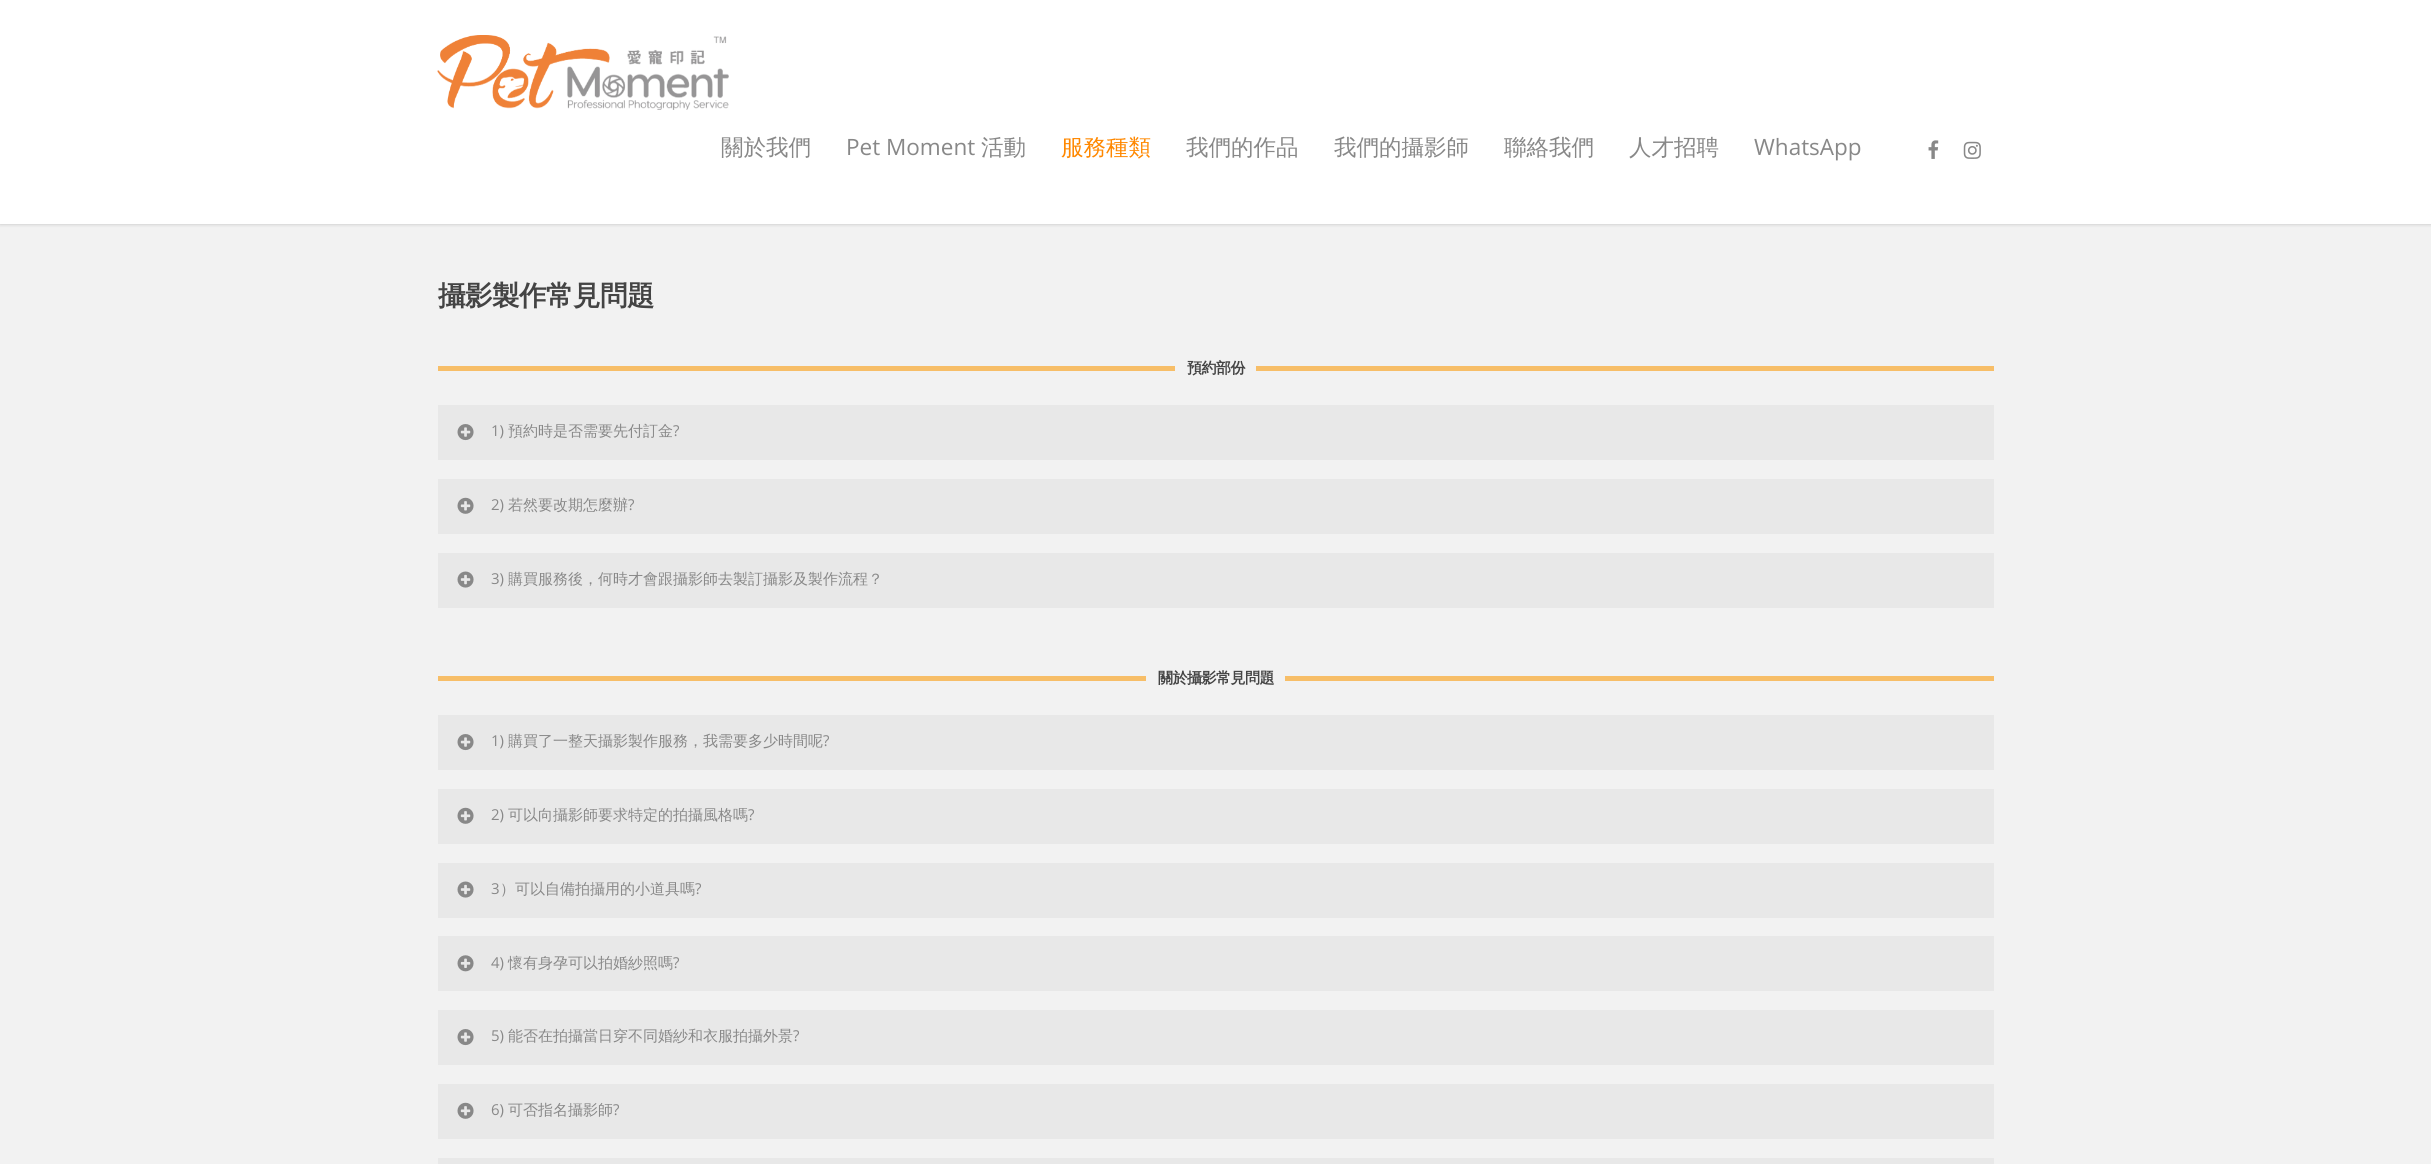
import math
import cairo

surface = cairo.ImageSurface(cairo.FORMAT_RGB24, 2431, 1164)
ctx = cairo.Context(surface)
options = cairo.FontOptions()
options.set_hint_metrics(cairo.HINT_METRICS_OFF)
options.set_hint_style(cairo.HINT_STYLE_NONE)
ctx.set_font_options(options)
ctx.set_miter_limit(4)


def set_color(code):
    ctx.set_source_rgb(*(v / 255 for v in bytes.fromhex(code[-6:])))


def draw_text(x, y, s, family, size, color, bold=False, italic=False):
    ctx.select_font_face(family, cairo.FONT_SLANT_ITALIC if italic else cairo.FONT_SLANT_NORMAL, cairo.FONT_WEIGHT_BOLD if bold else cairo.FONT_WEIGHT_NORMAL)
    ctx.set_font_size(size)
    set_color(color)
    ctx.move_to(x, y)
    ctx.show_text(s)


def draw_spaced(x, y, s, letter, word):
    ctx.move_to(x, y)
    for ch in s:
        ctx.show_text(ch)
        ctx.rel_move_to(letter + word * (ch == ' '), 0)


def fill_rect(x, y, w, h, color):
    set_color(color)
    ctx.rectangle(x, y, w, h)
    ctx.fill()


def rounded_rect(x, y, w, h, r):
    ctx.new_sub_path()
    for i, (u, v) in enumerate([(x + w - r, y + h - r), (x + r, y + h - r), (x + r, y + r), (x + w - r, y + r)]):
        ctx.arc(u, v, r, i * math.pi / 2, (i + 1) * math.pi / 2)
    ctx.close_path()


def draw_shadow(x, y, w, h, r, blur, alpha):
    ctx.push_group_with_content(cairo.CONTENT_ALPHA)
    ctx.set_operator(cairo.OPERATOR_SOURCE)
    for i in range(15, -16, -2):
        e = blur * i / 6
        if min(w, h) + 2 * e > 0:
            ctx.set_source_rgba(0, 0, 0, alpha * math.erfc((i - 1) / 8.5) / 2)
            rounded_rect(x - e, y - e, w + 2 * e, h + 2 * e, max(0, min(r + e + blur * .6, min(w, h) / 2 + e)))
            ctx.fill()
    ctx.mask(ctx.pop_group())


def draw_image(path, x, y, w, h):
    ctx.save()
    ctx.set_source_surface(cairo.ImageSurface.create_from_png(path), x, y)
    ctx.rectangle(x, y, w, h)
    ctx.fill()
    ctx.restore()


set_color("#f2f2f2")
ctx.paint()
set_color("#000000")
draw_shadow(0, 0, 2431, 224, 0, 2, 0.22)
fill_rect(0, 0, 2431, 224, "#ffffff")
draw_image("assets/img1.png", 437, 35, 292, 75)
draw_text(721, 155, "關於我們", "WenQuanYi Zen Hei Medium", 22.5, "#888888")
draw_text(846, 155, "Pet Moment", "Open Sans", 22.5, "#888888")
draw_text(981, 155, "活動", "WenQuanYi Zen Hei Medium", 22.5, "#888888")
draw_text(1061, 155, "服務種類", "WenQuanYi Zen Hei Medium", 22.5, "#ff8800")
draw_text(1186, 155, "我們的作品", "WenQuanYi Zen Hei Medium", 22.5, "#888888")
draw_text(1334, 155, "我們的攝影師", "WenQuanYi Zen Hei Medium", 22.5, "#888888")
draw_text(1504, 155, "聯絡我們", "WenQuanYi Zen Hei Medium", 22.5, "#888888")
draw_text(1629, 155, "人才招聘", "WenQuanYi Zen Hei Medium", 22.5, "#888888")
draw_text(1754, 155, "WhatsApp", "Open Sans", 22.5, "#888888")
draw_image("assets/img2.png", 1928, 140, 11, 19)
draw_image("assets/img3.png", 1963, 141, 18, 18)
ctx.select_font_face("WenQuanYi Zen Hei", cairo.FONT_SLANT_NORMAL, cairo.FONT_WEIGHT_BOLD)
ctx.set_font_size(27.5)
set_color("#444444")
draw_spaced(438, 305, "攝影製作常見問題", -0.5, 0)
fill_rect(438, 366, 737, 5, "#f7be68")
ctx.set_font_size(15)
set_color("#444444")
draw_spaced(1187, 373, "預約部份", -0.5, 0)
fill_rect(1256, 366, 738, 5, "#f7be68")
fill_rect(438, 405, 1556, 55, "#e8e8e8")
draw_image("assets/img4.png", 457, 424, 17, 17)
draw_text(491, 436, "1)", "Open Sans", 15, "#888888")
draw_text(508, 436, "預約時是否需要先付訂金", "WenQuanYi Zen Hei Medium", 15, "#888888")
draw_text(673, 436, "?", "Open Sans", 15, "#888888")
fill_rect(438, 479, 1556, 55, "#e8e8e8")
draw_image("assets/img5.png", 457, 497, 17, 17)
draw_text(491, 510, "2)", "Open Sans", 15, "#888888")
draw_text(508, 510, "若然要改期怎麼辦", "WenQuanYi Zen Hei Medium", 15, "#888888")
draw_text(628, 510, "?", "Open Sans", 15, "#888888")
fill_rect(438, 553, 1556, 55, "#e8e8e8")
draw_image("assets/img6.png", 457, 571, 17, 17)
draw_text(491, 584, "3)", "Open Sans", 15, "#888888")
draw_text(508, 584, "購買服務後，何時才會跟攝影師去製訂攝影及製作流程？", "WenQuanYi Zen Hei Medium", 15, "#888888")
fill_rect(438, 676, 708, 5, "#f7be68")
ctx.select_font_face("WenQuanYi Zen Hei", cairo.FONT_SLANT_NORMAL, cairo.FONT_WEIGHT_BOLD)
set_color("#444444")
draw_spaced(1158, 683, "關於攝影常見問題", -0.5, 0)
fill_rect(1285, 676, 709, 5, "#f7be68")
fill_rect(438, 715, 1556, 55, "#e8e8e8")
draw_image("assets/img4.png", 457, 734, 17, 17)
draw_text(491, 746, "1)", "Open Sans", 15, "#888888")
draw_text(508, 746, "購買了一整天攝影製作服務，我需要多少時間呢", "WenQuanYi Zen Hei Medium", 15, "#888888")
draw_text(823, 746, "?", "Open Sans", 15, "#888888")
fill_rect(438, 789, 1556, 55, "#e8e8e8")
draw_image("assets/img5.png", 457, 807, 17, 17)
draw_text(491, 820, "2)", "Open Sans", 15, "#888888")
draw_text(508, 820, "可以向攝影師要求特定的拍攝風格嗎", "WenQuanYi Zen Hei Medium", 15, "#888888")
draw_text(748, 820, "?", "Open Sans", 15, "#888888")
fill_rect(438, 863, 1556, 55, "#e8e8e8")
draw_image("assets/img6.png", 457, 881, 17, 17)
draw_text(491, 894, "3", "Open Sans", 15, "#888888")
draw_text(500, 894, "）可以自備拍攝用的小道具嗎", "WenQuanYi Zen Hei Medium", 15, "#888888")
draw_text(695, 894, "?", "Open Sans", 15, "#888888")
fill_rect(438, 936, 1556, 55, "#e8e8e8")
draw_image("assets/img7.png", 457, 955, 17, 17)
draw_text(491, 968, "4)", "Open Sans", 15, "#888888")
draw_text(508, 968, "懷有身孕可以拍婚紗照嗎", "WenQuanYi Zen Hei Medium", 15, "#888888")
draw_text(673, 968, "?", "Open Sans", 15, "#888888")
fill_rect(438, 1010, 1556, 55, "#e8e8e8")
draw_image("assets/img4.png", 457, 1029, 17, 17)
draw_text(491, 1041, "5)", "Open Sans", 15, "#888888")
draw_text(508, 1041, "能否在拍攝當日穿不同婚紗和衣服拍攝外景", "WenQuanYi Zen Hei Medium", 15, "#888888")
draw_text(793, 1041, "?", "Open Sans", 15, "#888888")
fill_rect(438, 1084, 1556, 55, "#e8e8e8")
draw_image("assets/img5.png", 457, 1102, 17, 17)
draw_text(491, 1115, "6)", "Open Sans", 15, "#888888")
draw_text(508, 1115, "可否指名攝影師", "WenQuanYi Zen Hei Medium", 15, "#888888")
draw_text(613, 1115, "?", "Open Sans", 15, "#888888")
fill_rect(438, 1158, 1556, 6, "#e8e8e8")
surface.write_to_png("output.png")
